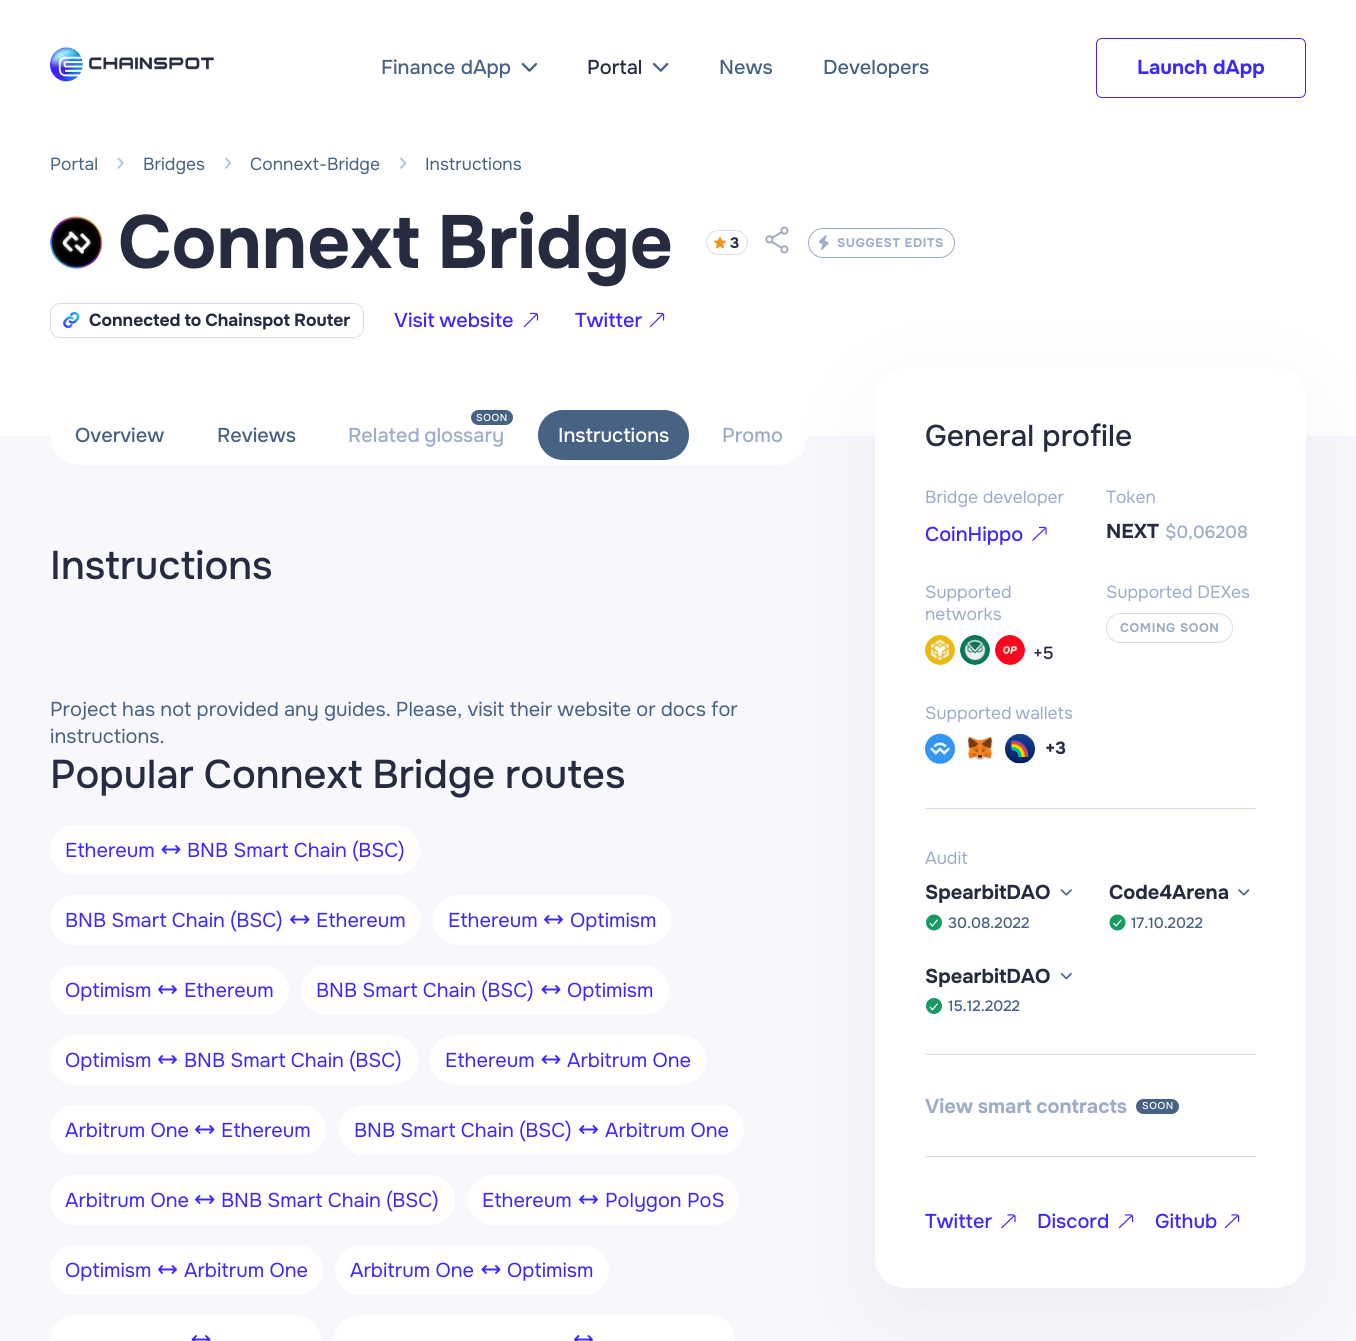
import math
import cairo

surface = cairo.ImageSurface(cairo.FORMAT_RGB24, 1356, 1341)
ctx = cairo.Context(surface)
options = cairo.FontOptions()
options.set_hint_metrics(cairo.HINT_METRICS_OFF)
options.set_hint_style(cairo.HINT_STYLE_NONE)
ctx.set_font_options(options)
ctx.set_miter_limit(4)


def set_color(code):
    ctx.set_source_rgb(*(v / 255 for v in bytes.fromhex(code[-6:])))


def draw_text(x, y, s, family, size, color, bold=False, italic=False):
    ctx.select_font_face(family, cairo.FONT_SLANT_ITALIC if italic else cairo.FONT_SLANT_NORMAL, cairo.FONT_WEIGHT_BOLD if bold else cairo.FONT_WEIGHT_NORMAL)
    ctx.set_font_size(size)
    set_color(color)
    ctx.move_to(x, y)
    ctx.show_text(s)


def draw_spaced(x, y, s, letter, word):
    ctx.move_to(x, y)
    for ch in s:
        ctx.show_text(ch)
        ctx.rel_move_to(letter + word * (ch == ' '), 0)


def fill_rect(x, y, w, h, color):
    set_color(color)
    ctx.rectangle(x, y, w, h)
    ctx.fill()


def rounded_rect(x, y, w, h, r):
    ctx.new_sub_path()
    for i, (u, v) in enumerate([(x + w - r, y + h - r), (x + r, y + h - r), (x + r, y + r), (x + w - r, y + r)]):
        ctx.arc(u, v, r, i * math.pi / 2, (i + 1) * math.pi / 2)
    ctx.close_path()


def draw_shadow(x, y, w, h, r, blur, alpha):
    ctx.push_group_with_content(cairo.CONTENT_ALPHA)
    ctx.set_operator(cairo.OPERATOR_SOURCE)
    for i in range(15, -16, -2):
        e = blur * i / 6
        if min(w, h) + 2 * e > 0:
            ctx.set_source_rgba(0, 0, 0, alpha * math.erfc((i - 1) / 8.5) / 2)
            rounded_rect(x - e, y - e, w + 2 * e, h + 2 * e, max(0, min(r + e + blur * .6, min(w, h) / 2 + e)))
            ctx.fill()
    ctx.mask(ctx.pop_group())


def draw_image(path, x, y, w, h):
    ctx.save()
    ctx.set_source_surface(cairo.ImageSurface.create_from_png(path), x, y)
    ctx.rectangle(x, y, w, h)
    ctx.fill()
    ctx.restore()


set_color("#ffffff")
ctx.paint()
draw_image("assets/img1.png", 50, 47, 164, 35)
draw_text(381, 74, "Finance dApp", "Onest Medium", 20, "#486284")
draw_image("assets/img2.png", 521, 63, 17, 9)
draw_text(587, 74, "Portal", "Onest Medium", 20, "#262b40")
draw_image("assets/img3.png", 653, 63, 16, 9)
draw_text(719, 74, "News", "Onest Medium", 20, "#486284")
draw_text(823, 74, "Developers", "Onest Medium", 20, "#486284")
rounded_rect(1096.5, 38.5, 209, 59, 5.5)
set_color("#3d28fa")
ctx.set_line_width(1)
ctx.stroke()
draw_text(1137, 74, "Launch dApp", "Onest", 20, "#3d28fa", bold=True)
draw_text(50, 170, "Portal", "Onest", 17.5, "#486284")
draw_image("assets/img4.png", 117, 157, 7, 12)
draw_text(143, 170, "Bridges", "Onest", 17.5, "#486284")
draw_image("assets/img5.png", 225, 157, 7, 12)
draw_text(250, 170, "Connext-Bridge", "Onest", 17.5, "#486284")
draw_image("assets/img5.png", 400, 157, 7, 12)
draw_text(425, 170, "Instructions", "Onest", 17.5, "#486284")
draw_image("assets/img6.png", 50, 216, 53, 53)
ctx.select_font_face("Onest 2", cairo.FONT_SLANT_NORMAL, cairo.FONT_WEIGHT_BOLD)
ctx.set_font_size(75)
set_color("#262b40")
draw_spaced(118, 268, "Connext Bridge", 0, -4)
rounded_rect(706.5, 230.5, 41, 24, 12)
set_color("#dcddeb")
ctx.stroke()
draw_image("assets/img7.png", 713, 236, 14, 13)
draw_text(730, 248, "3", "Onest 2", 15, "#262b40", bold=True)
draw_image("assets/img8.png", 765, 226, 24, 28)
rounded_rect(808.5, 228.5, 146, 29, 14.5)
set_color("#9cacc9")
ctx.stroke()
draw_image("assets/img9.png", 819, 235, 10, 15)
ctx.select_font_face("Onest", cairo.FONT_SLANT_NORMAL, cairo.FONT_WEIGHT_BOLD)
ctx.set_font_size(12.5)
draw_spaced(837, 247, "SUGGEST EDITS", 0.6, 0)
rounded_rect(50.5, 303.5, 313, 34, 9.5)
set_color("#dcddeb")
ctx.stroke()
draw_image("assets/img10.png", 63, 311, 17, 18)
ctx.select_font_face("Onest 2", cairo.FONT_SLANT_NORMAL, cairo.FONT_WEIGHT_BOLD)
ctx.set_font_size(17.5)
set_color("#262b40")
draw_spaced(89, 326, "Connected to Chainspot Router", 0, -1)
ctx.select_font_face("Onest Medium")
ctx.set_font_size(20)
set_color("#3d28fa")
draw_spaced(394, 327, "Visit website", 0, -1)
ctx.new_path()
ctx.move_to(530, 313.5)
ctx.curve_to(538.5, 313.5, 537.5, 312.5, 537.5, 320.5)
ctx.move_to(536.5, 314.5)
ctx.line_to(524, 327)
ctx.set_line_width(1.2)
ctx.stroke()
draw_text(575, 327, "Twitter", "Onest Medium", 20, "#3d28fa")
ctx.new_path()
ctx.move_to(656.5, 313.5)
ctx.curve_to(665, 313.5, 663.5, 312.5, 663.5, 320.5)
ctx.move_to(662.5, 314.5)
ctx.line_to(650, 327)
ctx.stroke()
fill_rect(0, 436, 1356, 905, "#f7f7fc")
set_color("#ffffff")
rounded_rect(50, 405, 758, 60, 30)
ctx.fill()
draw_text(75, 442, "Overview", "Onest Medium", 20, "#486284")
draw_text(217, 442, "Reviews", "Onest Medium", 20, "#486284")
rounded_rect(471, 410, 42, 15, 7.5)
ctx.fill()
ctx.set_font_size(10)
set_color("#ffffff")
draw_spaced(476, 421, "SOON", 0.6, 0)
ctx.set_font_size(20)
set_color("#9cacc9")
draw_spaced(348, 442, "Related glossary", 0, -1)
set_color("#486284")
rounded_rect(538, 410, 151, 50, 25)
ctx.fill()
draw_text(558, 442, "Instructions", "Onest Medium", 20, "#ffffff")
set_color("#1e2347")
draw_shadow(875, 398, 431, 920, 30, 49, 0.05)
draw_text(722, 442, "Promo", "Onest Medium", 20, "#9cacc9")
draw_text(50, 579, "Instructions", "Onest Medium", 40, "#262b40")
ctx.select_font_face("Onest")
ctx.set_font_size(20)
set_color("#486284")
draw_spaced(50, 716, "Project has not provided any guides. Please, visit their website or docs for", 0, -0.25)
draw_text(50, 743, "instructions.", "Onest", 20, "#486284")
ctx.select_font_face("Onest Medium")
ctx.set_font_size(40)
set_color("#262b40")
draw_spaced(50, 788, "Popular Connext Bridge routes", 0, -1)
set_color("#ffffff")
rounded_rect(50, 825, 370, 50, 25)
ctx.fill()
draw_text(65, 857, "Ethereum", "Onest", 20, "#3d28fa")
ctx.new_path()
ctx.move_to(176, 853)
ctx.line_to(179.5, 849.5)
ctx.line_to(176, 846)
ctx.move_to(166, 846)
ctx.line_to(162.5, 849.5)
ctx.line_to(166, 853)
ctx.move_to(163, 849.5)
ctx.line_to(179.5, 849.5)
ctx.set_line_width(1.9)
ctx.set_line_cap(cairo.LINE_CAP_ROUND)
ctx.set_line_join(cairo.LINE_JOIN_ROUND)
ctx.stroke()
draw_spaced(187, 857, "BNB Smart Chain (BSC)", 0, -0.25)
set_color("#ffffff")
rounded_rect(50, 895, 370, 50, 25)
ctx.fill()
set_color("#3d28fa")
draw_spaced(65, 927, "BNB Smart Chain (BSC)", 0, -0.25)
ctx.new_path()
ctx.move_to(305, 923)
ctx.line_to(308.5, 919.5)
ctx.line_to(305, 916)
ctx.move_to(294.5, 916)
ctx.line_to(291, 919.5)
ctx.line_to(294.5, 923)
ctx.move_to(291.5, 919.5)
ctx.line_to(308.5, 919.5)
ctx.stroke()
draw_text(316, 927, "Ethereum", "Onest", 20, "#3d28fa")
set_color("#ffffff")
rounded_rect(433, 895, 238, 50, 25)
ctx.fill()
draw_text(448, 927, "Ethereum", "Onest", 20, "#3d28fa")
ctx.new_path()
ctx.move_to(558.5, 923)
ctx.line_to(562, 919.5)
ctx.line_to(558.5, 916)
ctx.move_to(548.5, 916)
ctx.line_to(545, 919.5)
ctx.line_to(548.5, 923)
ctx.move_to(545.5, 919.5)
ctx.line_to(562, 919.5)
ctx.stroke()
draw_text(570, 927, "Optimism", "Onest", 20, "#3d28fa")
set_color("#ffffff")
rounded_rect(50, 965, 239, 50, 25)
ctx.fill()
draw_text(65, 997, "Optimism", "Onest", 20, "#3d28fa")
ctx.new_path()
ctx.move_to(172.5, 993)
ctx.line_to(176, 989.5)
ctx.line_to(172.5, 986)
ctx.move_to(162, 986)
ctx.line_to(159, 989.5)
ctx.line_to(162, 993)
ctx.move_to(159, 989.5)
ctx.line_to(176, 989.5)
ctx.stroke()
draw_text(184, 997, "Ethereum", "Onest", 20, "#3d28fa")
set_color("#ffffff")
rounded_rect(301, 965, 368, 50, 25)
ctx.fill()
set_color("#3d28fa")
draw_spaced(316, 997, "BNB Smart Chain (BSC)", 0, -0.25)
ctx.new_path()
ctx.move_to(556, 993)
ctx.line_to(559.5, 989.5)
ctx.line_to(556, 986)
ctx.move_to(546, 986)
ctx.line_to(542.5, 989.5)
ctx.line_to(546, 993)
ctx.move_to(543, 989.5)
ctx.line_to(559.5, 989.5)
ctx.stroke()
draw_text(567, 997, "Optimism", "Onest", 20, "#3d28fa")
set_color("#ffffff")
rounded_rect(50, 1035, 368, 50, 25)
ctx.fill()
draw_text(65, 1067, "Optimism", "Onest", 20, "#3d28fa")
ctx.new_path()
ctx.move_to(172.5, 1063)
ctx.line_to(176, 1059.5)
ctx.line_to(172.5, 1056)
ctx.move_to(162, 1056)
ctx.line_to(159, 1059.5)
ctx.line_to(162, 1063)
ctx.move_to(159, 1059.5)
ctx.line_to(176, 1059.5)
ctx.stroke()
draw_spaced(184, 1067, "BNB Smart Chain (BSC)", 0, -0.25)
set_color("#ffffff")
rounded_rect(430, 1035, 276, 50, 25)
ctx.fill()
draw_text(445, 1067, "Ethereum", "Onest", 20, "#3d28fa")
ctx.new_path()
ctx.move_to(556, 1063)
ctx.line_to(559.5, 1059.5)
ctx.line_to(556, 1056)
ctx.move_to(546, 1056)
ctx.line_to(542.5, 1059.5)
ctx.line_to(546, 1063)
ctx.move_to(543, 1059.5)
ctx.line_to(559.5, 1059.5)
ctx.stroke()
draw_text(567, 1067, "Arbitrum One", "Onest", 20, "#3d28fa")
set_color("#ffffff")
rounded_rect(50, 1105, 276, 50, 25)
ctx.fill()
draw_text(65, 1137, "Arbitrum One", "Onest", 20, "#3d28fa")
ctx.new_path()
ctx.move_to(210, 1133)
ctx.line_to(213.5, 1129.5)
ctx.line_to(210, 1126)
ctx.move_to(199.5, 1126)
ctx.line_to(196, 1129.5)
ctx.line_to(199.5, 1133)
ctx.move_to(196.5, 1129.5)
ctx.line_to(213.5, 1129.5)
ctx.stroke()
draw_text(221, 1137, "Ethereum", "Onest", 20, "#3d28fa")
set_color("#ffffff")
rounded_rect(339, 1105, 405, 50, 25)
ctx.fill()
set_color("#3d28fa")
draw_spaced(354, 1137, "BNB Smart Chain (BSC)", 0, -0.25)
ctx.new_path()
ctx.move_to(593.5, 1133)
ctx.line_to(597, 1129.5)
ctx.line_to(593.5, 1126)
ctx.move_to(583.5, 1126)
ctx.line_to(580, 1129.5)
ctx.line_to(583.5, 1133)
ctx.move_to(580.5, 1129.5)
ctx.line_to(597, 1129.5)
ctx.stroke()
draw_text(605, 1137, "Arbitrum One", "Onest", 20, "#3d28fa")
set_color("#ffffff")
rounded_rect(50, 1175, 405, 50, 25)
ctx.fill()
draw_text(65, 1207, "Arbitrum One", "Onest", 20, "#3d28fa")
ctx.new_path()
ctx.move_to(210, 1203)
ctx.line_to(213.5, 1199.5)
ctx.line_to(210, 1196)
ctx.move_to(199.5, 1196)
ctx.line_to(196, 1199.5)
ctx.line_to(199.5, 1203)
ctx.move_to(196.5, 1199.5)
ctx.line_to(213.5, 1199.5)
ctx.stroke()
draw_spaced(221, 1207, "BNB Smart Chain (BSC)", 0, -0.25)
set_color("#ffffff")
rounded_rect(468, 1175, 271, 50, 25)
ctx.fill()
draw_text(482, 1207, "Ethereum", "Onest", 20, "#3d28fa")
ctx.new_path()
ctx.move_to(593.5, 1203)
ctx.line_to(597, 1199.5)
ctx.line_to(593.5, 1196)
ctx.move_to(583.5, 1196)
ctx.line_to(580, 1199.5)
ctx.line_to(583.5, 1203)
ctx.move_to(580.5, 1199.5)
ctx.line_to(597, 1199.5)
ctx.stroke()
draw_text(605, 1207, "Polygon PoS", "Onest", 20, "#3d28fa")
set_color("#ffffff")
rounded_rect(50, 1245, 273, 50, 25)
ctx.fill()
draw_text(65, 1277, "Optimism", "Onest", 20, "#3d28fa")
ctx.new_path()
ctx.move_to(172.5, 1273)
ctx.line_to(176, 1269.5)
ctx.line_to(172.5, 1266)
ctx.move_to(162, 1266)
ctx.line_to(159, 1269.5)
ctx.line_to(162, 1273)
ctx.move_to(159, 1269.5)
ctx.line_to(176, 1269.5)
ctx.stroke()
draw_text(184, 1277, "Arbitrum One", "Onest", 20, "#3d28fa")
set_color("#ffffff")
rounded_rect(335, 1245, 274, 50, 25)
ctx.fill()
draw_text(350, 1277, "Arbitrum One", "Onest", 20, "#3d28fa")
ctx.new_path()
ctx.move_to(496, 1273)
ctx.line_to(499.5, 1269.5)
ctx.line_to(496, 1266)
ctx.move_to(486, 1266)
ctx.line_to(482.5, 1269.5)
ctx.line_to(486, 1273)
ctx.move_to(483, 1269.5)
ctx.line_to(499.5, 1269.5)
ctx.stroke()
draw_text(507, 1277, "Optimism", "Onest", 20, "#3d28fa")
set_color("#ffffff")
rounded_rect(50, 1315, 271, 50, 25)
ctx.fill()
ctx.new_path()
ctx.move_to(206, 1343)
ctx.line_to(209.5, 1339.5)
ctx.line_to(206, 1336)
ctx.move_to(196, 1336)
ctx.line_to(192.5, 1339.5)
ctx.line_to(196, 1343)
ctx.move_to(193, 1339.5)
ctx.line_to(209.5, 1339.5)
set_color("#3d28fa")
ctx.stroke()
set_color("#ffffff")
rounded_rect(334, 1315, 401, 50, 25)
ctx.fill()
ctx.new_path()
ctx.move_to(588.5, 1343)
ctx.line_to(592, 1339.5)
ctx.line_to(588.5, 1336)
ctx.move_to(578.5, 1336)
ctx.line_to(575, 1339.5)
ctx.line_to(578.5, 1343)
ctx.move_to(575.5, 1339.5)
ctx.line_to(592, 1339.5)
set_color("#3d28fa")
ctx.stroke()
set_color("#ffffff")
rounded_rect(875, 368, 431, 920, 30)
ctx.fill()
draw_text(925, 446, "General profile", "Onest Medium", 30, "#262b40")
fill_rect(925, 808, 331, 1, "#dcddeb")
draw_text(925, 503, "Bridge developer", "Onest", 17.5, "#9cacc9")
draw_text(925, 541, "CoinHippo", "Onest Medium", 20, "#3d28fa")
ctx.new_path()
ctx.move_to(1039, 527.5)
ctx.curve_to(1047.5, 527.5, 1046, 526, 1046, 534.5)
ctx.move_to(1045, 528.5)
ctx.line_to(1032.5, 540.5)
ctx.set_line_width(1.2)
ctx.set_line_cap(cairo.LINE_CAP_BUTT)
ctx.set_line_join(cairo.LINE_JOIN_MITER)
ctx.stroke()
draw_text(1106, 503, "Token", "Onest", 17.5, "#9cacc9")
draw_text(1106, 538, "NEXT", "Onest 2", 20, "#262b40", bold=True)
draw_text(1165, 538, "$0,06208", "Onest Medium", 17.5, "#9cacc9")
draw_text(925, 598, "Supported", "Onest", 17.5, "#9cacc9")
draw_text(925, 620, "networks", "Onest", 17.5, "#9cacc9")
draw_image("assets/img11.png", 925, 635, 30, 30)
draw_image("assets/img12.png", 960, 635, 30, 30)
draw_image("assets/img13.png", 995, 635, 30, 30)
draw_text(1033, 659, "+5", "Onest Medium", 17.5, "#262b40")
draw_text(1106, 598, "Supported DEXes", "Onest", 17.5, "#9cacc9")
rounded_rect(1106.5, 613.5, 126, 29, 14.5)
set_color("#dcddeb")
ctx.set_line_width(1)
ctx.stroke()
ctx.select_font_face("Onest 2", cairo.FONT_SLANT_NORMAL, cairo.FONT_WEIGHT_BOLD)
ctx.set_font_size(12.5)
set_color("#9cacc9")
draw_spaced(1120, 632, "COMING SOON", 0.6, 0)
ctx.select_font_face("Onest")
ctx.set_font_size(17.5)
draw_spaced(925, 719, "Supported wallets", 0, -1)
draw_image("assets/img14.png", 925, 733, 30, 31)
draw_image("assets/img15.png", 967, 736, 26, 24)
draw_image("assets/img16.png", 1005, 734, 30, 30)
draw_text(1045, 754, "+3", "Onest 2", 17.5, "#262b40", bold=True)
fill_rect(925, 1054, 331, 1, "#dcddeb")
draw_text(925, 864, "Audit", "Onest", 17.5, "#9cacc9")
draw_text(925, 899, "SpearbitDAO", "Onest 2", 20, "#262b40", bold=True)
draw_image("assets/img17.png", 1060, 889, 12, 7)
draw_image("assets/img18.png", 926, 914, 16, 17)
draw_text(948, 928, "30.08.2022", "Onest Medium", 15, "#486284")
draw_text(1109, 899, "Code4Arena", "Onest 2", 20, "#262b40", bold=True)
draw_image("assets/img19.png", 1238, 889, 12, 7)
draw_image("assets/img20.png", 1109, 914, 17, 17)
draw_text(1131, 928, "17.10.2022", "Onest Medium", 15, "#486284")
draw_text(925, 983, "SpearbitDAO", "Onest 2", 20, "#262b40", bold=True)
draw_image("assets/img21.png", 1060, 973, 12, 7)
draw_image("assets/img22.png", 926, 998, 16, 16)
draw_text(948, 1011, "15.12.2022", "Onest Medium", 15, "#486284")
fill_rect(925, 1156, 331, 1, "#dcddeb")
ctx.select_font_face("Onest 2", cairo.FONT_SLANT_NORMAL, cairo.FONT_WEIGHT_BOLD)
ctx.set_font_size(20)
set_color("#9cacc9")
draw_spaced(925, 1113, "View smart contracts", 0, -1)
set_color("#486284")
rounded_rect(1136, 1099, 43, 15, 7.5)
ctx.fill()
ctx.select_font_face("Onest Medium")
ctx.set_font_size(10)
set_color("#ffffff")
draw_spaced(1142, 1109, "SOON", 0.6, 0)
draw_text(925, 1228, "Twitter", "Onest Medium", 20, "#3d28fa")
ctx.new_path()
ctx.move_to(1007.5, 1215)
ctx.curve_to(1016, 1215, 1015, 1213.5, 1015, 1222)
ctx.move_to(1014, 1216)
ctx.line_to(1001.5, 1228)
ctx.set_line_width(1.2)
ctx.stroke()
draw_text(1037, 1228, "Discord", "Onest Medium", 20, "#3d28fa")
ctx.new_path()
ctx.move_to(1125, 1215)
ctx.curve_to(1133.5, 1215, 1132.5, 1213.5, 1132.5, 1222)
ctx.move_to(1131.5, 1216)
ctx.line_to(1119, 1228)
ctx.stroke()
draw_text(1155, 1228, "Github", "Onest Medium", 20, "#3d28fa")
ctx.new_path()
ctx.move_to(1231.5, 1215)
ctx.curve_to(1240, 1215, 1238.5, 1213.5, 1238.5, 1222)
ctx.move_to(1237.5, 1216)
ctx.line_to(1225, 1228)
ctx.stroke()
surface.write_to_png("output.png")
